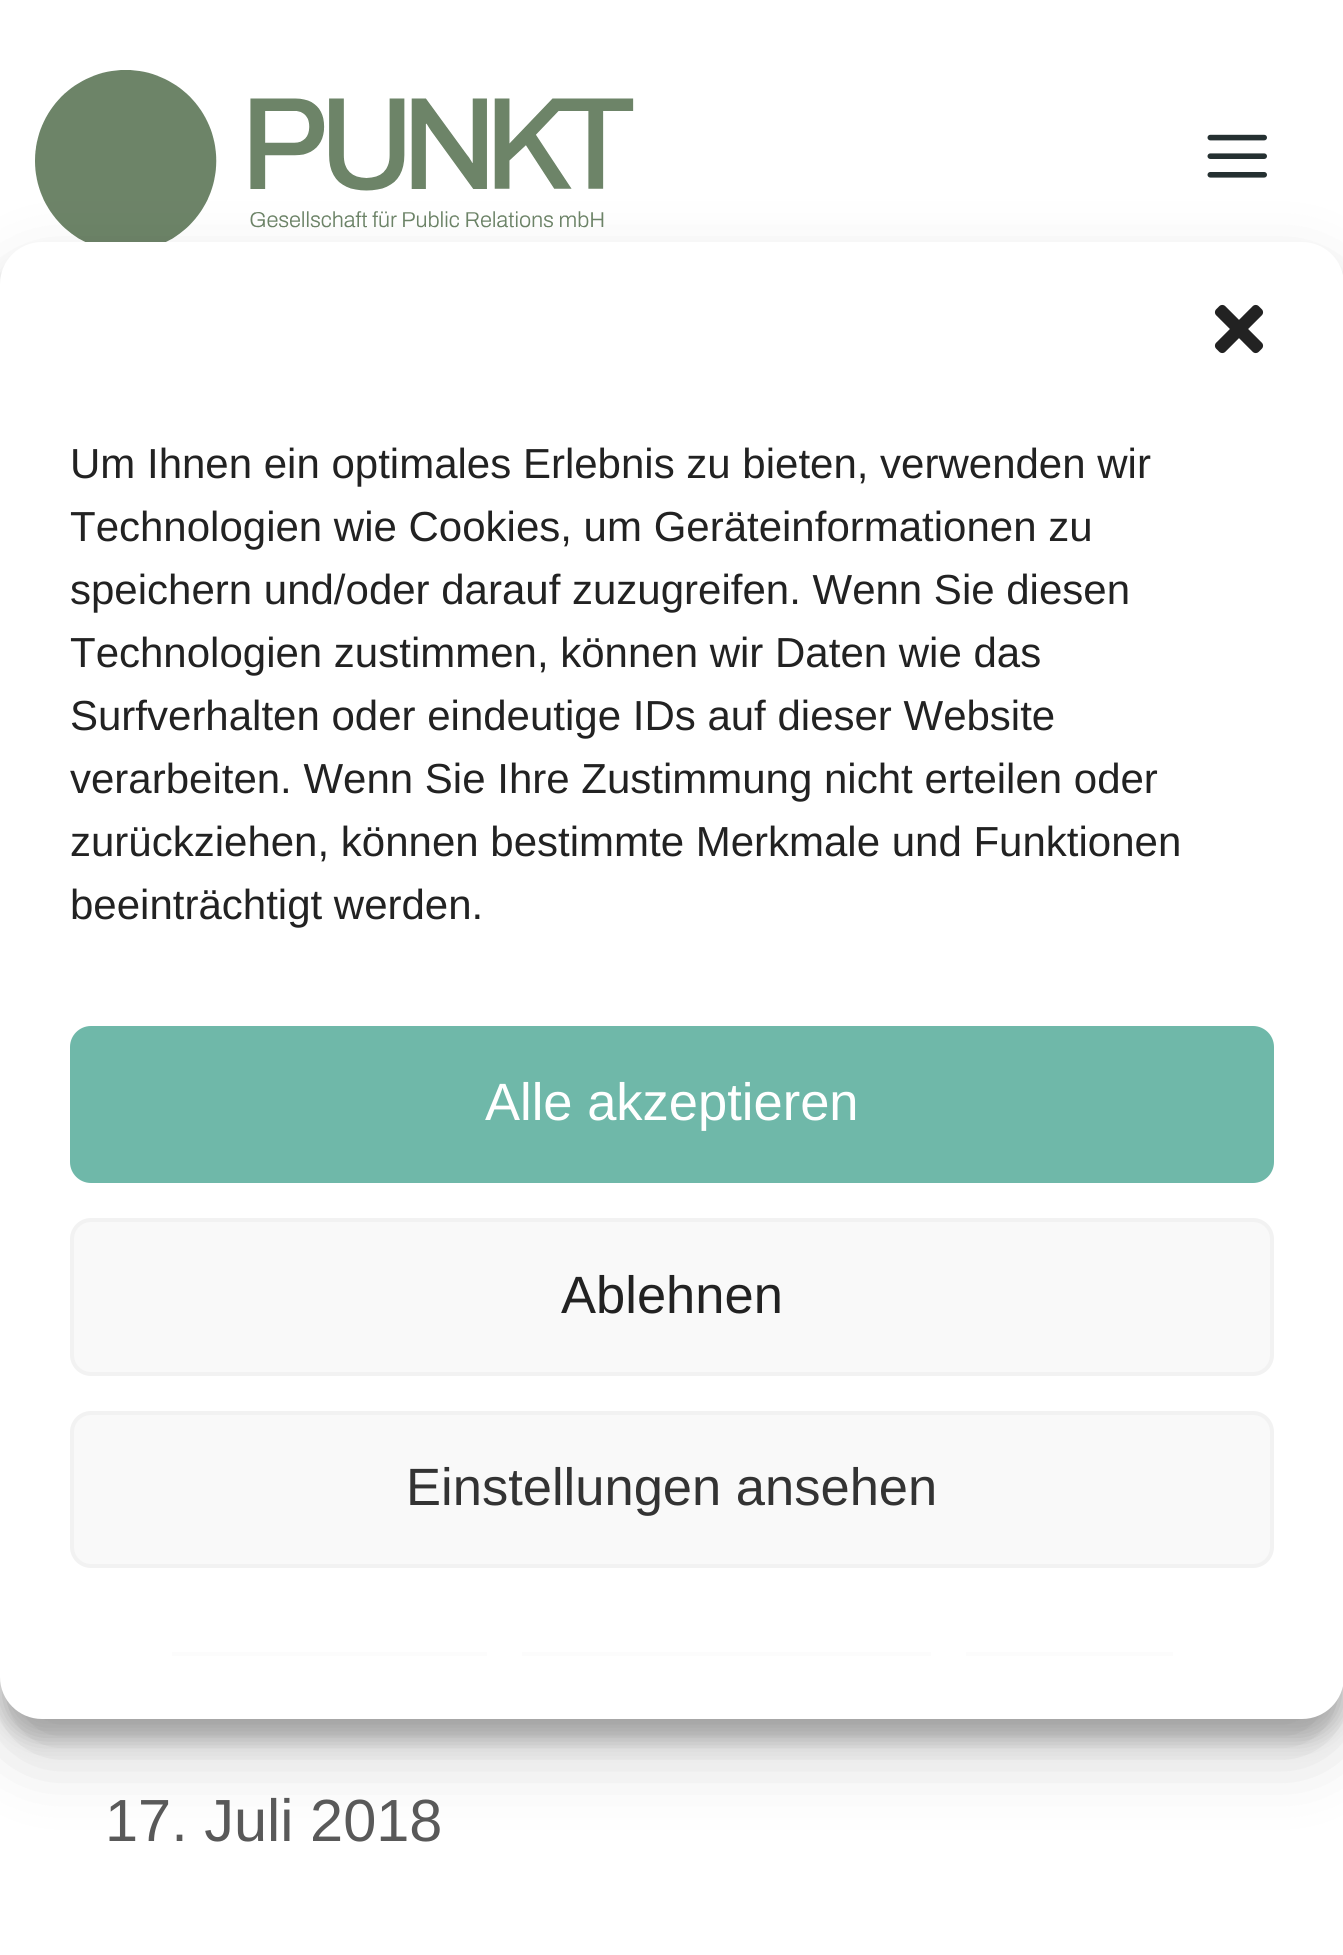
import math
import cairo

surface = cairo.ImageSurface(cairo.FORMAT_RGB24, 1343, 1955)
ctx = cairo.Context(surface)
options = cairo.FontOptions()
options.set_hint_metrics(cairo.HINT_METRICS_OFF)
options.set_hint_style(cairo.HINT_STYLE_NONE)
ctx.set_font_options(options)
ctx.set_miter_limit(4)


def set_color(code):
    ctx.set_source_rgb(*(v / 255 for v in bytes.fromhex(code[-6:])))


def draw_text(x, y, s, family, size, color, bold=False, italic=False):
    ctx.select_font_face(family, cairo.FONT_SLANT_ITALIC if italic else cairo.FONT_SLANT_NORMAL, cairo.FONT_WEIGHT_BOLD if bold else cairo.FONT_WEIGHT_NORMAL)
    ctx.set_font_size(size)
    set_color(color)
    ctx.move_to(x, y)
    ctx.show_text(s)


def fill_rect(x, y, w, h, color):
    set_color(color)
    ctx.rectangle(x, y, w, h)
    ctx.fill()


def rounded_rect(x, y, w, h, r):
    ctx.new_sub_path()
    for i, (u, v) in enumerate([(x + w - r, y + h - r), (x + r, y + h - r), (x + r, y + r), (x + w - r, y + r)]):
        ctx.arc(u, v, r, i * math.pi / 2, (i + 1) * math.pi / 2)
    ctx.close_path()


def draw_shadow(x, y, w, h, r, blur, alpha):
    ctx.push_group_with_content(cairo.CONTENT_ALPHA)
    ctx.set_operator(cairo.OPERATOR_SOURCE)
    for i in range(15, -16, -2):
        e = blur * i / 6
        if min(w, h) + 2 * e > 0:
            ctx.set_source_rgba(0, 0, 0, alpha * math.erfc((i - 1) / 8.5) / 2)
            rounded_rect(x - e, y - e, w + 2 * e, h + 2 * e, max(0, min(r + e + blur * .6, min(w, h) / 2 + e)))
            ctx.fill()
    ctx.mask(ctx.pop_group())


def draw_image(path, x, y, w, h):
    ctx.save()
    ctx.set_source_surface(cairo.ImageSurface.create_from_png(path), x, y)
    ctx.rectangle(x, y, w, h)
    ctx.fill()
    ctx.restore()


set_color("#ffffff")
ctx.paint()
draw_image("assets/img1.png", 35, 70, 599, 172)
draw_image("assets/img2.png", 1207, 134, 60, 44)
set_color("#000000")
draw_shadow(0, 263, 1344, 1477, 42, 10.5, 0.23)
draw_shadow(0, 277, 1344, 1477, 42, 35, 0.19)
set_color("#ffffff")
rounded_rect(0, 242, 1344, 1477, 42)
ctx.fill()
draw_image("assets/img3.png", 1214, 304, 50, 50)
draw_text(70, 478, "Um Ihnen ein optimales Erlebnis zu bieten, verwenden wir", "Liberation Sans", 42, "#222222")
draw_text(70, 541, "Technologien wie Cookies, um Geräteinformationen zu", "Liberation Sans", 42, "#222222")
draw_text(70, 604, "speichern und/oder darauf zuzugreifen. Wenn Sie diesen", "Liberation Sans", 42, "#222222")
draw_text(70, 667, "Technologien zustimmen, können wir Daten wie das", "Liberation Sans", 42, "#222222")
draw_text(70, 730, "Surfverhalten oder eindeutige IDs auf dieser Website", "Liberation Sans", 42, "#222222")
draw_text(70, 793, "verarbeiten. Wenn Sie Ihre Zustimmung nicht erteilen oder", "Liberation Sans", 42, "#222222")
draw_text(70, 856, "zurückziehen, können bestimmte Merkmale und Funktionen", "Liberation Sans", 42, "#222222")
draw_text(70, 919, "beeinträchtigt werden.", "Liberation Sans", 42, "#222222")
set_color("#6fb8a9")
rounded_rect(72, 1028, 1200, 153, 19)
ctx.fill_preserve()
ctx.set_line_width(4)
ctx.stroke()
draw_text(485, 1120, "Alle akzeptieren", "Liberation Sans", 52.5, "#ffffff")
set_color("#f9f9f9")
rounded_rect(72, 1220, 1200, 154, 19)
ctx.fill_preserve()
set_color("#f2f2f2")
ctx.stroke()
draw_text(561, 1313, "Ablehnen", "Liberation Sans", 52.5, "#222222")
set_color("#f9f9f9")
rounded_rect(72, 1413, 1200, 153, 19)
ctx.fill_preserve()
set_color("#f2f2f2")
ctx.stroke()
draw_text(406, 1505, "Einstellungen ansehen", "Liberation Sans", 52.5, "#333333")
fill_rect(172, 1652, 315, 4, "#fcfcfc")
fill_rect(522, 1652, 409, 4, "#fcfcfc")
fill_rect(966, 1652, 207, 4, "#fcfcfc")
draw_text(105, 1841, "17. Juli 2018", "Liberation Sans", 59.5, "#595959")
surface.write_to_png("output.png")
